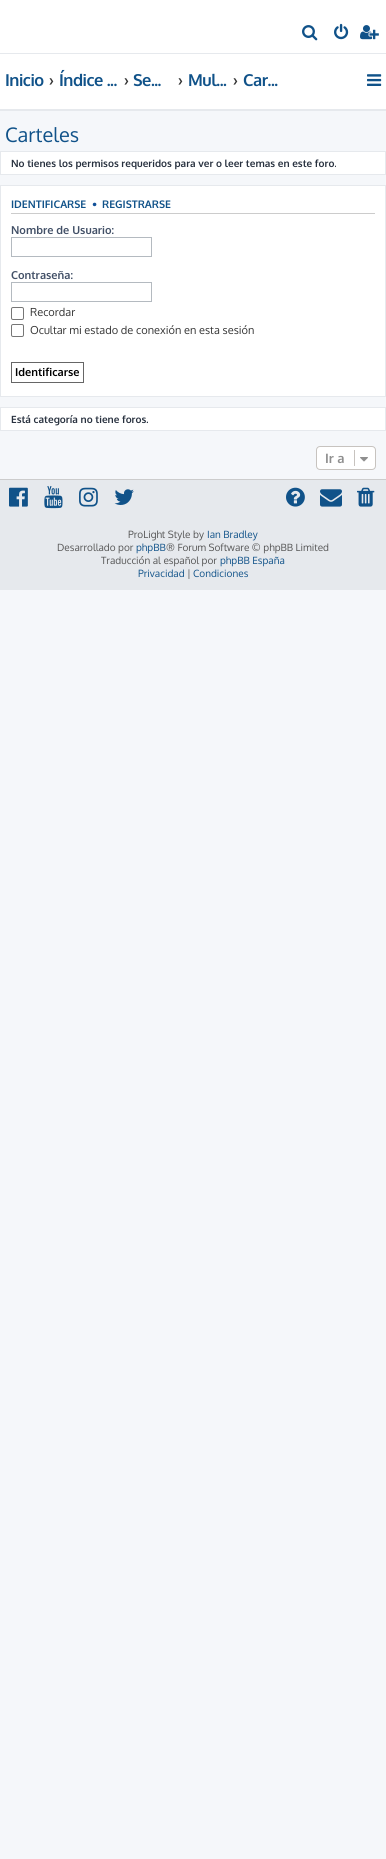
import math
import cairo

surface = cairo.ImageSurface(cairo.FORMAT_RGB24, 386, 1859)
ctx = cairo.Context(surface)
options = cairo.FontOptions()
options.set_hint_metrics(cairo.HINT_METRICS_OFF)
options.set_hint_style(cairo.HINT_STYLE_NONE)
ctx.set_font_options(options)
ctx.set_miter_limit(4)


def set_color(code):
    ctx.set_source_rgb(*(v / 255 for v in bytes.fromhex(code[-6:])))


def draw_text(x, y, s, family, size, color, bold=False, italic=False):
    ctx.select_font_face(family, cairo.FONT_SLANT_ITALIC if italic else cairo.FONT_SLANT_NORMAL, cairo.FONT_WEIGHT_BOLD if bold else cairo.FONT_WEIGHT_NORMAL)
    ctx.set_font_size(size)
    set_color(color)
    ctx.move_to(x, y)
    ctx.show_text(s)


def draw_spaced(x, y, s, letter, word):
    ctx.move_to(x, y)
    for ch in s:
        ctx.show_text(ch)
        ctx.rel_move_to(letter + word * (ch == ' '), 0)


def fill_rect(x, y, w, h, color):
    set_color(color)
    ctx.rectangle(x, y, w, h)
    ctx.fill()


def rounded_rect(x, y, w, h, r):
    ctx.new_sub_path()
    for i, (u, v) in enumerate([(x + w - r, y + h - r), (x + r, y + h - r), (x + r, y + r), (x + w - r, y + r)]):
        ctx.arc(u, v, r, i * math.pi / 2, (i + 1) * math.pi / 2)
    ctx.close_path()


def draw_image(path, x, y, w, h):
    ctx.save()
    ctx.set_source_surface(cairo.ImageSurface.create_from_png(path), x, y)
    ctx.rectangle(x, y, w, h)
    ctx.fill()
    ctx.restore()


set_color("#f5f7fa")
ctx.paint()
fill_rect(0, 0, 386, 53, "#ffffff")
fill_rect(0, 53, 386, 1, "#e6e9ed")
draw_image("assets/img1.png", 302, 25, 16, 16)
draw_image("assets/img2.png", 334, 23, 15, 17)
draw_image("assets/img3.png", 360, 25, 19, 15)
fill_rect(0, 54, 386, 55, "#ffffff")
fill_rect(0, 109, 386, 2, "#e6e9ed")
ctx.select_font_face("Oxygen", cairo.FONT_SLANT_NORMAL, cairo.FONT_WEIGHT_BOLD)
ctx.set_font_size(16.5)
set_color("#105289")
draw_spaced(5, 86, "Inicio", -0.5, 0)
draw_text(49, 86, "›", "Oxygen", 16.5, "#333333", bold=True)
set_color("#105289")
draw_spaced(59, 86, "Índice ...", -0.5, 0)
draw_text(124, 86, "›", "Oxygen", 16.5, "#333333", bold=True)
set_color("#105289")
draw_spaced(133, 86, "Se...", -0.5, 0)
draw_text(178, 86, "›", "Oxygen", 16.5, "#333333", bold=True)
set_color("#105289")
draw_spaced(188, 86, "Mul...", -0.5, 0)
draw_text(233, 86, "›", "Oxygen", 16.5, "#333333", bold=True)
set_color("#105289")
draw_spaced(243, 86, "Car...", -0.5, 0)
draw_image("assets/img4.png", 367, 74, 15, 12)
draw_text(5, 142, "Carteles", "Oxygen", 20, "#105289")
set_color("#ffffff")
ctx.rectangle(0.5, 151.5, 385, 23)
ctx.fill_preserve()
set_color("#e6e9ed")
ctx.set_line_width(1)
ctx.stroke()
draw_text(11, 167, "No tienes los permisos requeridos para ver o leer temas en este foro.", "Oxygen", 10, "#28313f", bold=True)
set_color("#ffffff")
ctx.rectangle(0.5, 185.5, 385, 211)
ctx.fill_preserve()
set_color("#e6e9ed")
ctx.stroke()
fill_rect(11, 213, 364, 1, "#cccccc")
draw_text(11, 208, "IDENTIFICARSE", "Oxygen", 10.5, "#105289", bold=True)
draw_text(92, 208, "•", "Oxygen", 10.5, "#115098", bold=True)
draw_text(102, 208, "REGISTRARSE", "Oxygen", 10.5, "#105289", bold=True)
draw_text(11, 234, "Nombre de Usuario:", "Oxygen", 11, "#425067", bold=True)
ctx.rectangle(11.5, 237.5, 140, 19)
set_color("#b4bac0")
ctx.stroke()
draw_text(11, 279, "Contraseña:", "Oxygen", 11, "#425067", bold=True)
ctx.rectangle(11.5, 282.5, 140, 19)
set_color("#b4bac0")
ctx.stroke()
rounded_rect(11.5, 307.5, 12, 12, 1.5)
set_color("#767676")
ctx.stroke()
draw_text(30, 316, "Recordar", "Oxygen", 11, "#333333")
rounded_rect(11.5, 324.5, 12, 12, 1.5)
set_color("#767676")
ctx.stroke()
draw_text(30, 334, "Ocultar mi estado de conexión en esta sesión", "Oxygen", 11, "#333333")
ctx.rectangle(11.5, 362.5, 72, 20)
set_color("#666666")
ctx.stroke()
draw_text(15, 376, "Identificarse", "Oxygen", 11, "#000000", bold=True)
set_color("#ffffff")
ctx.rectangle(0.5, 407.5, 385, 23)
ctx.fill_preserve()
set_color("#e6e9ed")
ctx.stroke()
draw_text(11, 423, "Está categoría no tiene foros.", "Oxygen", 10, "#28313f", bold=True)
set_color("#ffffff")
rounded_rect(316.5, 446.5, 59, 23, 3.5)
ctx.fill_preserve()
set_color("#c7c3bf")
ctx.stroke()
draw_text(325, 463, "Ir a", "Oxygen", 13, "#8f8f8f", bold=True)
fill_rect(354, 450, 1, 16, "#c7c3bf")
draw_image("assets/img5.png", 360, 457, 8, 5)
fill_rect(0, 480, 386, 110, "#e6e9ed")
fill_rect(0, 479, 386, 1, "#cccccc")
draw_image("assets/img6.png", 9, 487, 19, 20)
draw_image("assets/img7.png", 44, 486, 19, 23)
draw_image("assets/img8.png", 79, 487, 19, 20)
draw_image("assets/img9.png", 114, 489, 20, 16)
draw_image("assets/img10.png", 286, 487, 19, 20)
draw_image("assets/img11.png", 320, 489, 22, 18)
draw_image("assets/img12.png", 357, 487, 18, 20)
draw_text(128, 538, "ProLight Style by", "Oxygen", 10, "#555555")
draw_text(207, 538, "Ian Bradley", "Oxygen", 10, "#105289")
draw_text(57, 551, "Desarrollado por", "Oxygen", 10, "#555555")
draw_text(136, 551, "phpBB", "Oxygen", 10, "#105289")
draw_text(166, 551, "® Forum Software © phpBB Limited", "Oxygen", 10, "#555555")
draw_text(101, 564, "Traducción al español por", "Oxygen", 10, "#555555")
draw_text(220, 564, "phpBB España", "Oxygen", 10, "#105289")
draw_text(138, 577, "Privacidad", "Oxygen", 10, "#105289")
draw_text(187, 577, "|", "Oxygen", 10, "#555555")
draw_text(193, 577, "Condiciones", "Oxygen", 10, "#105289")
surface.write_to_png("output.png")
